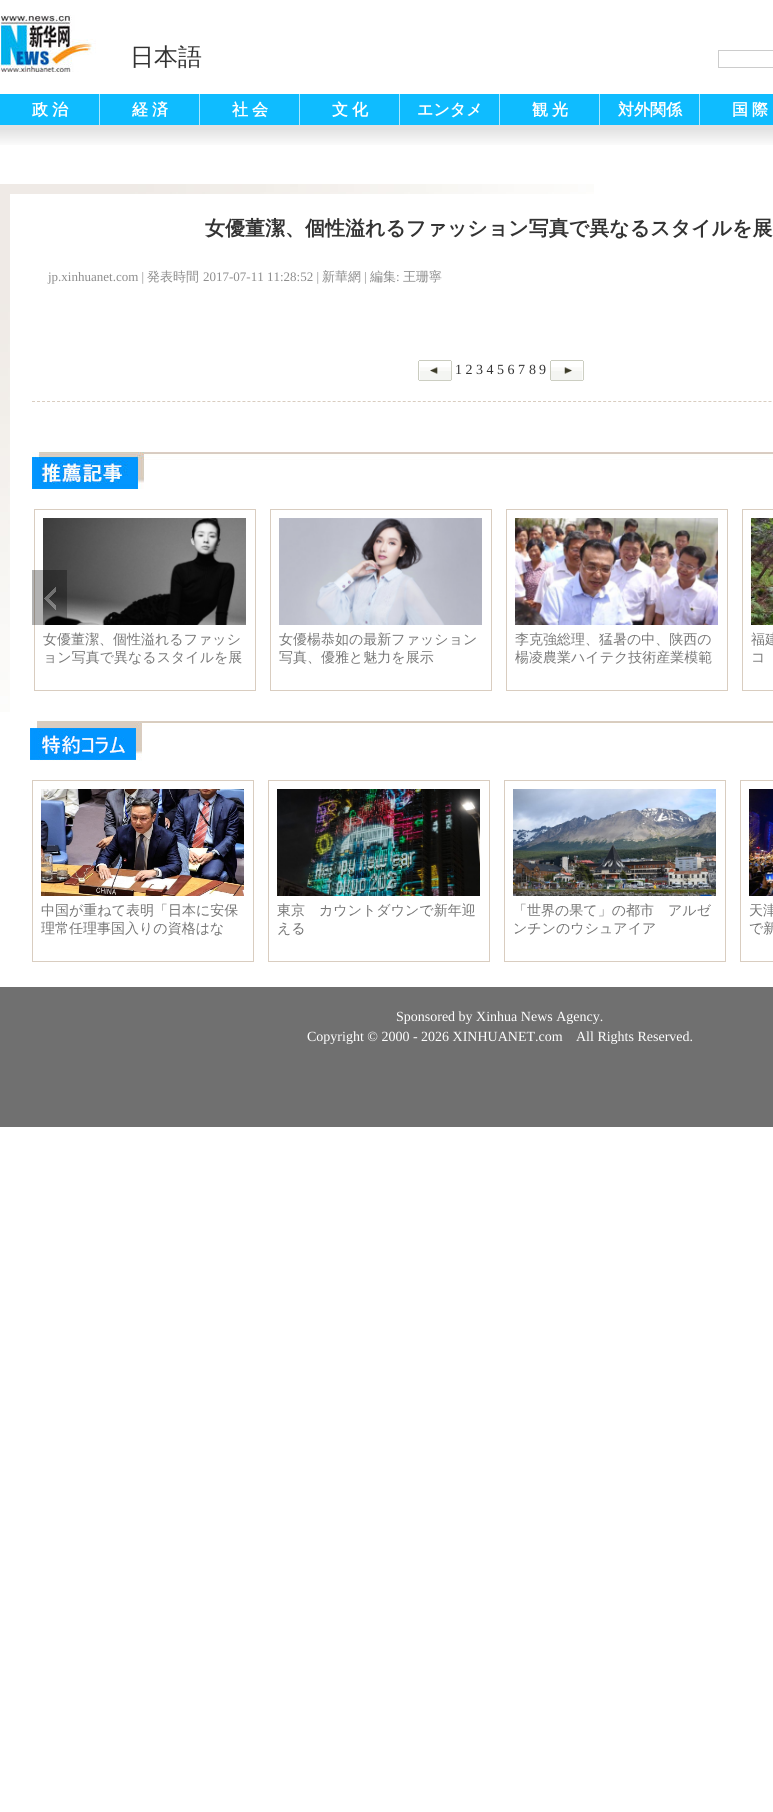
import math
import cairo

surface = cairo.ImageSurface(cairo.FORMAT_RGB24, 773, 1812)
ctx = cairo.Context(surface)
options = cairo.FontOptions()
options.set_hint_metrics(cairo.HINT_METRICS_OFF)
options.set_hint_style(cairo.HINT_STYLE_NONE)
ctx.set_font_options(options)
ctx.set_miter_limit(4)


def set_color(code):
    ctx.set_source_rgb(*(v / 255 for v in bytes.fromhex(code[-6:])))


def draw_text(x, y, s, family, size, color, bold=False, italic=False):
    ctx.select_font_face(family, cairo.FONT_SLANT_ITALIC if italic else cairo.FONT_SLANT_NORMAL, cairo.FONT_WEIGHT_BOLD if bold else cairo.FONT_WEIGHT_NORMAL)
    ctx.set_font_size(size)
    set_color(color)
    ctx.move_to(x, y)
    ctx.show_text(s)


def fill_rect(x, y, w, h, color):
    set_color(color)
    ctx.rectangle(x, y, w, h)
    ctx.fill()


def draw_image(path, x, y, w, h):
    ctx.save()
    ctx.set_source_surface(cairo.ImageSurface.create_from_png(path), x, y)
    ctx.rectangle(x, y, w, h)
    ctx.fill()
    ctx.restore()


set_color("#ffffff")
ctx.paint()
draw_image("assets/img1.png", 0, 15, 96, 57)
draw_text(130, 65, "日本語", "WenQuanYi Zen Hei Medium", 24, "#333333")
ctx.rectangle(718.5, 50.5, 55, 17)
set_color("#cccccc")
ctx.set_line_width(1)
ctx.stroke()
fill_rect(0, 125, 773, 5, "#e2e2e2")
fill_rect(0, 94, 99, 31, "#0fbcff")
fill_rect(99, 94, 1, 31, "#abe7ff")
draw_text(32, 115, "政", "WenQuanYi Zen Hei", 16, "#ffffff", bold=True)
draw_text(52, 115, "治", "WenQuanYi Zen Hei", 16, "#ffffff", bold=True)
fill_rect(100, 94, 99, 31, "#0fbcff")
fill_rect(199, 94, 1, 31, "#abe7ff")
draw_text(132, 115, "経", "WenQuanYi Zen Hei", 16, "#ffffff", bold=True)
draw_text(152, 115, "済", "WenQuanYi Zen Hei", 16, "#ffffff", bold=True)
fill_rect(200, 94, 99, 31, "#0fbcff")
fill_rect(299, 94, 1, 31, "#abe7ff")
draw_text(232, 115, "社", "WenQuanYi Zen Hei", 16, "#ffffff", bold=True)
draw_text(252, 115, "会", "WenQuanYi Zen Hei", 16, "#ffffff", bold=True)
fill_rect(300, 94, 99, 31, "#0fbcff")
fill_rect(399, 94, 1, 31, "#abe7ff")
draw_text(332, 115, "文", "WenQuanYi Zen Hei", 16, "#ffffff", bold=True)
draw_text(352, 115, "化", "WenQuanYi Zen Hei", 16, "#ffffff", bold=True)
fill_rect(400, 94, 99, 31, "#0fbcff")
fill_rect(499, 94, 1, 31, "#abe7ff")
draw_text(417, 115, "エンタメ", "WenQuanYi Zen Hei", 16, "#ffffff", bold=True)
fill_rect(500, 94, 99, 31, "#0fbcff")
fill_rect(599, 94, 1, 31, "#abe7ff")
draw_text(532, 115, "観", "WenQuanYi Zen Hei", 16, "#ffffff", bold=True)
draw_text(552, 115, "光", "WenQuanYi Zen Hei", 16, "#ffffff", bold=True)
fill_rect(600, 94, 99, 31, "#0fbcff")
fill_rect(699, 94, 1, 31, "#abe7ff")
draw_text(618, 115, "対外関係", "WenQuanYi Zen Hei", 16, "#ffffff", bold=True)
fill_rect(700, 94, 73, 31, "#0fbcff")
draw_text(732, 115, "国", "WenQuanYi Zen Hei", 16, "#ffffff", bold=True)
draw_text(752, 115, "際", "WenQuanYi Zen Hei", 16, "#ffffff", bold=True)
draw_image("assets/img2.png", 0, 130, 773, 15)
draw_image("assets/img3.png", 0, 184, 10, 528)
draw_image("assets/img4.png", 10, 184, 584, 10)
draw_text(205, 235, "女優董潔、個性溢れるファッション写真で異なるスタイルを展", "WenQuanYi Zen Hei", 20, "#333333", bold=True)
draw_text(48, 281, "jp.xinhuanet.com |", "Liberation Serif", 13, "#8d8d8d")
draw_text(147, 281, "発表時間", "WenQuanYi Zen Hei Medium", 13, "#8d8d8d")
draw_text(203, 281, "2017-07-11 11:28:52 |", "Liberation Serif", 13, "#8d8d8d")
draw_text(322, 281, "新華網", "WenQuanYi Zen Hei Medium", 13, "#8d8d8d")
draw_text(364, 281, "|", "Liberation Serif", 13, "#8d8d8d")
draw_text(370, 281, "編集", "WenQuanYi Zen Hei Medium", 13, "#8d8d8d")
draw_text(396, 281, ":", "Liberation Serif", 13, "#8d8d8d")
draw_text(403, 281, "王珊寧", "WenQuanYi Zen Hei Medium", 13, "#8d8d8d")
draw_image("assets/img5.png", 418, 360, 34, 21)
draw_text(455, 374, "1 2 3 4 5 6 7", "Liberation Serif", 14, "#333333")
draw_text(529, 374, "8", "Liberation Serif", 14, "#393939")
draw_text(539, 374, "9", "Liberation Serif", 14, "#333333")
draw_image("assets/img6.png", 550, 360, 34, 21)
ctx.new_path()
ctx.move_to(32, 401.5)
ctx.line_to(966, 401.5)
set_color("#d9cdc0")
ctx.set_dash([3, 2.01])
ctx.stroke()
draw_image("assets/img7.png", 32, 452, 741, 37)
ctx.rectangle(34.5, 509.5, 221, 181)
ctx.set_dash([])
ctx.stroke()
draw_image("assets/img9.png", 43, 518, 203, 107)
draw_image("assets/img8.png", 32, 570, 35, 55)
draw_text(43, 644, "女優董潔、個性溢れるファッシ", "WenQuanYi Zen Hei Medium", 14, "#787878")
draw_text(43, 662, "ョン写真で異なるスタイルを展", "WenQuanYi Zen Hei Medium", 14, "#787878")
ctx.rectangle(270.5, 509.5, 221, 181)
set_color("#d9cdc0")
ctx.stroke()
draw_image("assets/img10.png", 279, 518, 203, 107)
draw_text(279, 644, "女優楊恭如の最新ファッション", "WenQuanYi Zen Hei Medium", 14, "#787878")
draw_text(279, 662, "写真、優雅と魅力を展示", "WenQuanYi Zen Hei Medium", 14, "#787878")
ctx.rectangle(506.5, 509.5, 221, 181)
set_color("#d9cdc0")
ctx.stroke()
draw_image("assets/img11.png", 515, 518, 203, 107)
draw_text(515, 644, "李克強総理、猛暑の中、陕西の", "WenQuanYi Zen Hei Medium", 14, "#787878")
draw_text(515, 662, "楊凌農業ハイテク技術産業模範", "WenQuanYi Zen Hei Medium", 14, "#787878")
ctx.rectangle(742.5, 509.5, 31, 181)
set_color("#d9cdc0")
ctx.stroke()
draw_image("assets/img12.png", 751, 518, 22, 107)
draw_text(751, 644, "福建", "WenQuanYi Zen Hei Medium", 14, "#787878")
draw_text(751, 662, "コ", "WenQuanYi Zen Hei Medium", 14, "#787878")
draw_image("assets/img13.png", 30, 721, 743, 241)
fill_rect(0, 987, 773, 140, "#707070")
draw_text(396, 1021, "Sponsored by Xinhua News Agency.", "Liberation Serif", 14, "#ffffff")
draw_text(307, 1041, "Copyright © 2000 - 2026 XINHUANET.com", "Liberation Serif", 14, "#ffffff")
draw_text(576, 1041, "All Rights Reserved.", "Liberation Serif", 14, "#ffffff")
surface.write_to_png("output.png")
